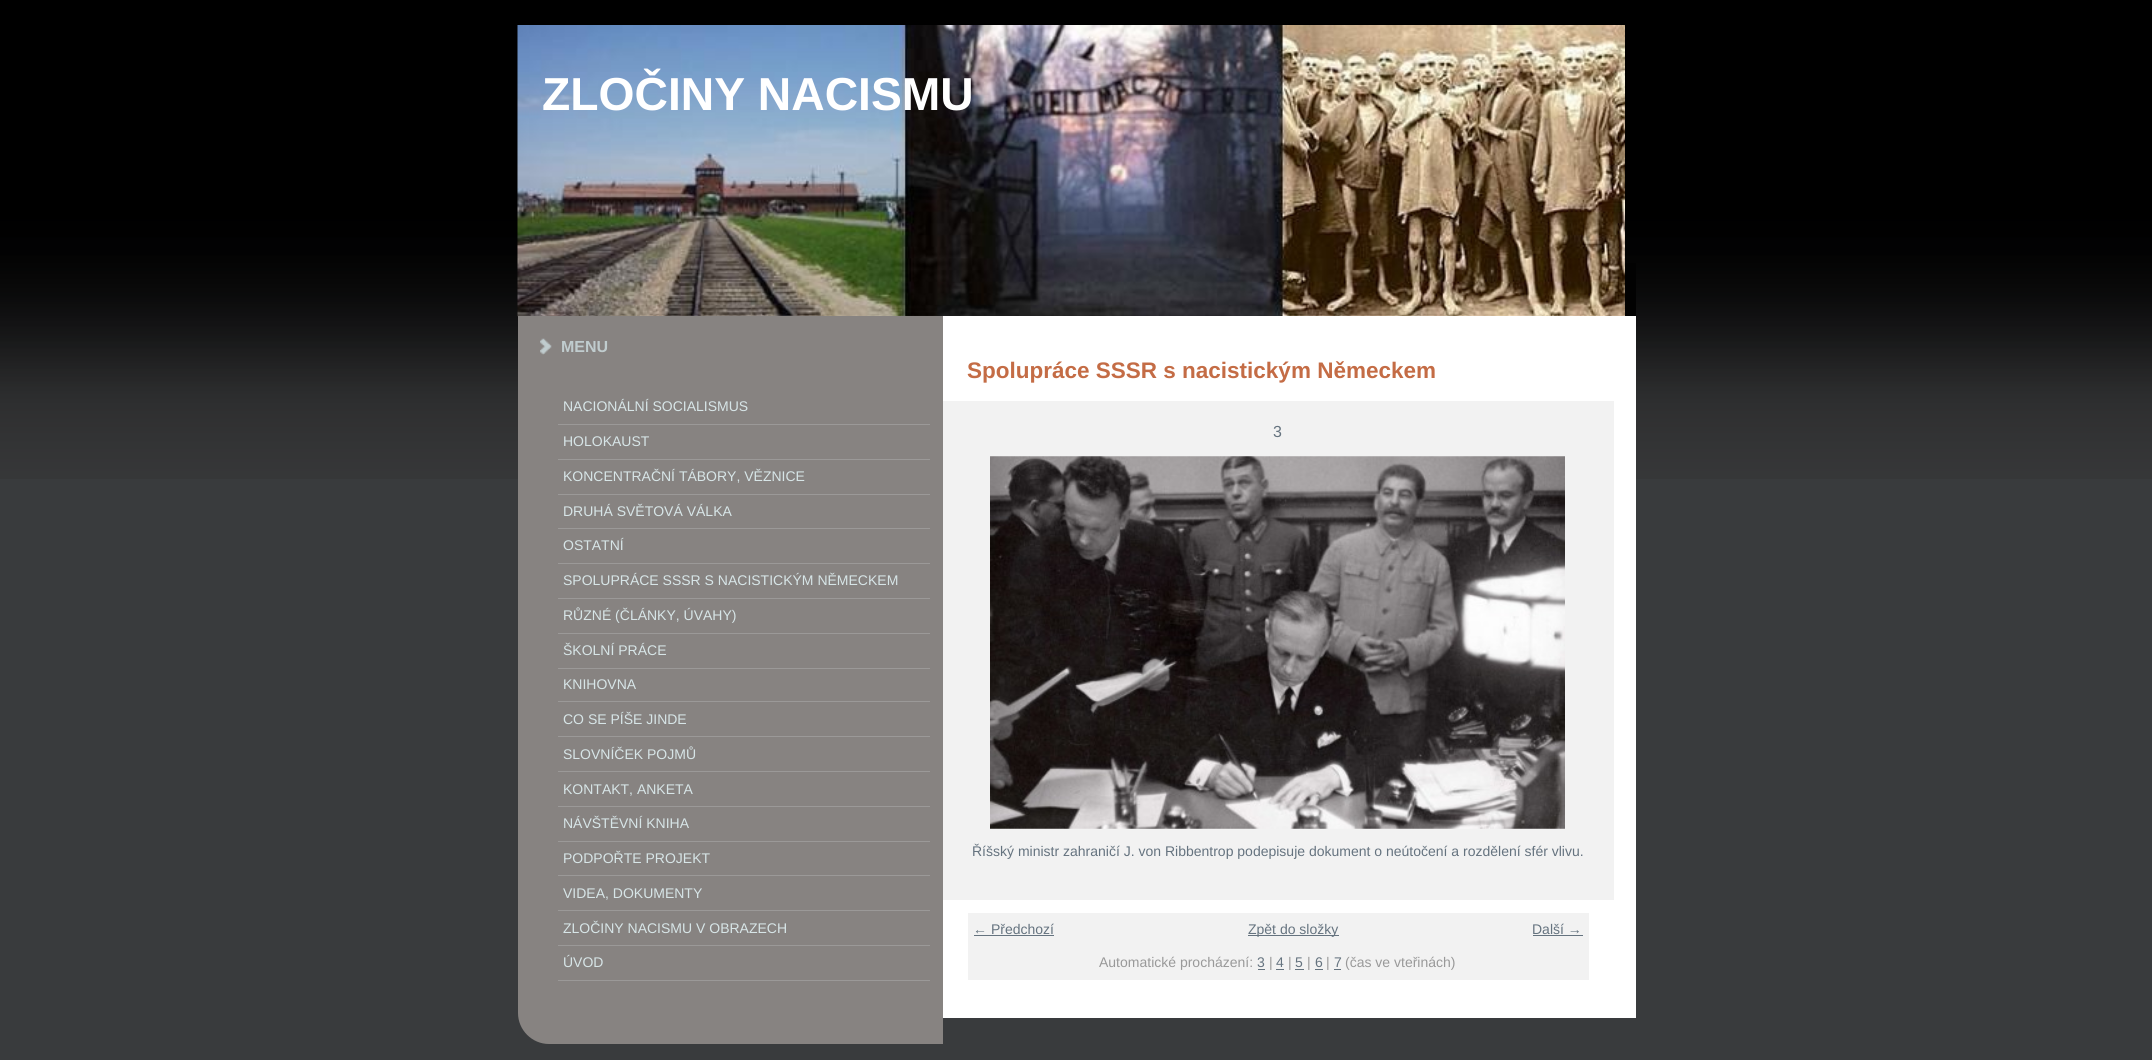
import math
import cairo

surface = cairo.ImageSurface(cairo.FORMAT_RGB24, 2152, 1060)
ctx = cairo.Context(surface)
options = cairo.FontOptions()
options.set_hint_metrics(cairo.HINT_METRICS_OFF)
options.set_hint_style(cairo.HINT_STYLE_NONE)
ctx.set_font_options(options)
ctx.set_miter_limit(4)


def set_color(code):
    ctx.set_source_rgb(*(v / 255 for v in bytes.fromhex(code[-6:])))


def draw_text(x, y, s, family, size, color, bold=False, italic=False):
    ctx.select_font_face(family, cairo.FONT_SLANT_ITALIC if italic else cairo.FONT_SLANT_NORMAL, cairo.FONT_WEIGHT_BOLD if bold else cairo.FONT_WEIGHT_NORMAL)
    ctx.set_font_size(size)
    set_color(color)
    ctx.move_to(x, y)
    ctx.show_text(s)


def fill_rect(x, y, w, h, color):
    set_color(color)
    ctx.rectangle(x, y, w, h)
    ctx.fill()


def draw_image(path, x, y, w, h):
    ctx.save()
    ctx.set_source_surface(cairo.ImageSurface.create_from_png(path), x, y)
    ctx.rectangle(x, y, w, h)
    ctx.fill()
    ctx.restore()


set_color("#393b3d")
ctx.paint()
draw_image("assets/img1.png", 0, 0, 2152, 479)
fill_rect(1625, 263, 11, 53, "#020202")
draw_image("assets/img2.png", 517, 25, 1108, 292)
draw_text(542, 110, "ZLOČINY NACISMU", "Liberation Sans", 46.25, "#ffffff", bold=True)
set_color("#878381")
ctx.new_path()
ctx.move_to(518, 316)
ctx.line_to(943, 316)
ctx.line_to(943, 1044)
ctx.line_to(549, 1044)
ctx.curve_to(532, 1044, 518, 1030, 518, 1013)
ctx.close_path()
ctx.fill()
draw_image("assets/img3.png", 540, 338, 12, 17)
draw_text(561, 352, "MENU", "Liberation Sans", 16, "#c0ccce", bold=True)
fill_rect(558, 424, 372, 1, "#9b9998")
draw_text(563, 411, "NACIONÁLNÍ SOCIALISMUS", "Liberation Sans", 14, "#d7e5e7")
fill_rect(558, 459, 372, 1, "#9b9998")
draw_text(563, 446, "HOLOKAUST", "Liberation Sans", 14, "#d7e5e7")
fill_rect(558, 494, 372, 1, "#9b9998")
draw_text(563, 481, "KONCENTRAČNÍ TÁBORY, VĚZNICE", "Liberation Sans", 14, "#d7e5e7")
fill_rect(558, 528, 372, 1, "#9b9998")
draw_text(563, 516, "DRUHÁ SVĚTOVÁ VÁLKA", "Liberation Sans", 14, "#d7e5e7")
fill_rect(558, 563, 372, 1, "#9b9998")
draw_text(563, 550, "OSTATNÍ", "Liberation Sans", 14, "#d7e5e7")
fill_rect(558, 598, 372, 1, "#9b9998")
draw_text(563, 585, "SPOLUPRÁCE SSSR S NACISTICKÝM NĚMECKEM", "Liberation Sans", 14, "#d7e5e7")
fill_rect(558, 633, 372, 1, "#9b9998")
draw_text(563, 620, "RŮZNÉ (ČLÁNKY, ÚVAHY)", "Liberation Sans", 14, "#d7e5e7")
fill_rect(558, 668, 372, 1, "#9b9998")
draw_text(563, 655, "ŠKOLNÍ PRÁCE", "Liberation Sans", 14, "#d7e5e7")
fill_rect(558, 701, 372, 1, "#9b9998")
draw_text(563, 689, "KNIHOVNA", "Liberation Sans", 14, "#d7e5e7")
fill_rect(558, 736, 372, 1, "#9b9998")
draw_text(563, 724, "CO SE PÍŠE JINDE", "Liberation Sans", 14, "#d7e5e7")
fill_rect(558, 771, 372, 1, "#9b9998")
draw_text(563, 759, "SLOVNÍČEK POJMŮ", "Liberation Sans", 14, "#d7e5e7")
fill_rect(558, 806, 372, 1, "#9b9998")
draw_text(563, 794, "KONTAKT, ANKETA", "Liberation Sans", 14, "#d7e5e7")
fill_rect(558, 841, 372, 1, "#9b9998")
draw_text(563, 828, "NÁVŠTĚVNÍ KNIHA", "Liberation Sans", 14, "#d7e5e7")
fill_rect(558, 875, 372, 1, "#9b9998")
draw_text(563, 863, "PODPOŘTE PROJEKT", "Liberation Sans", 14, "#d7e5e7")
fill_rect(558, 910, 372, 1, "#9b9998")
draw_text(563, 898, "VIDEA, DOKUMENTY", "Liberation Sans", 14, "#d7e5e7")
fill_rect(558, 945, 372, 1, "#9b9998")
draw_text(563, 933, "ZLOČINY NACISMU V OBRAZECH", "Liberation Sans", 14, "#d7e5e7")
fill_rect(558, 980, 372, 1, "#9b9998")
draw_text(563, 967, "ÚVOD", "Liberation Sans", 14, "#d7e5e7")
fill_rect(943, 316, 693, 702, "#ffffff")
draw_text(967, 378, "Spolupráce SSSR s nacistickým Německem", "Liberation Sans", 22.5, "#c46c45", bold=True)
fill_rect(943, 401, 671, 499, "#f2f2f2")
draw_text(1273, 437, "3", "Liberation Sans", 16, "#65737f")
draw_image("assets/img4.png", 990, 456, 575, 373)
draw_text(972, 856, "Říšský ministr zahraničí J. von Ribbentrop podepisuje dokument o neútočení a rozdělení sfér vlivu.", "Liberation Sans", 14, "#65737f")
fill_rect(968, 913, 621, 67, "#f2f2f2")
draw_text(973, 934, "← Předchozí", "Liberation Sans", 14, "#65737f")
fill_rect(974, 935, 80, 1, "#65737f")
fill_rect(1248, 935, 91, 1, "#65737f")
draw_text(1248, 934, "Zpět do složky", "Liberation Sans", 14, "#65737f")
draw_text(1532, 934, "Další →", "Liberation Sans", 14, "#65737f")
fill_rect(1533, 935, 50, 1, "#65737f")
draw_text(1099, 967, "Automatické procházení:", "Liberation Sans", 14, "#999999")
draw_text(1257, 967, "3", "Liberation Sans", 14, "#65737f")
fill_rect(1258, 969, 7, 1, "#65737f")
draw_text(1269, 967, "|", "Liberation Sans", 14, "#999999")
draw_text(1276, 967, "4", "Liberation Sans", 14, "#65737f")
fill_rect(1276, 969, 8, 1, "#65737f")
draw_text(1288, 967, "|", "Liberation Sans", 14, "#999999")
draw_text(1295, 967, "5", "Liberation Sans", 14, "#65737f")
fill_rect(1295, 969, 9, 1, "#65737f")
draw_text(1307, 967, "|", "Liberation Sans", 14, "#999999")
draw_text(1315, 967, "6", "Liberation Sans", 14, "#65737f")
fill_rect(1315, 969, 8, 1, "#65737f")
draw_text(1326, 967, "|", "Liberation Sans", 14, "#999999")
draw_text(1334, 967, "7", "Liberation Sans", 14, "#65737f")
fill_rect(1334, 969, 7, 1, "#65737f")
draw_text(1345, 967, "(čas ve vteřinách)", "Liberation Sans", 14, "#999999")
surface.write_to_png("output.png")
